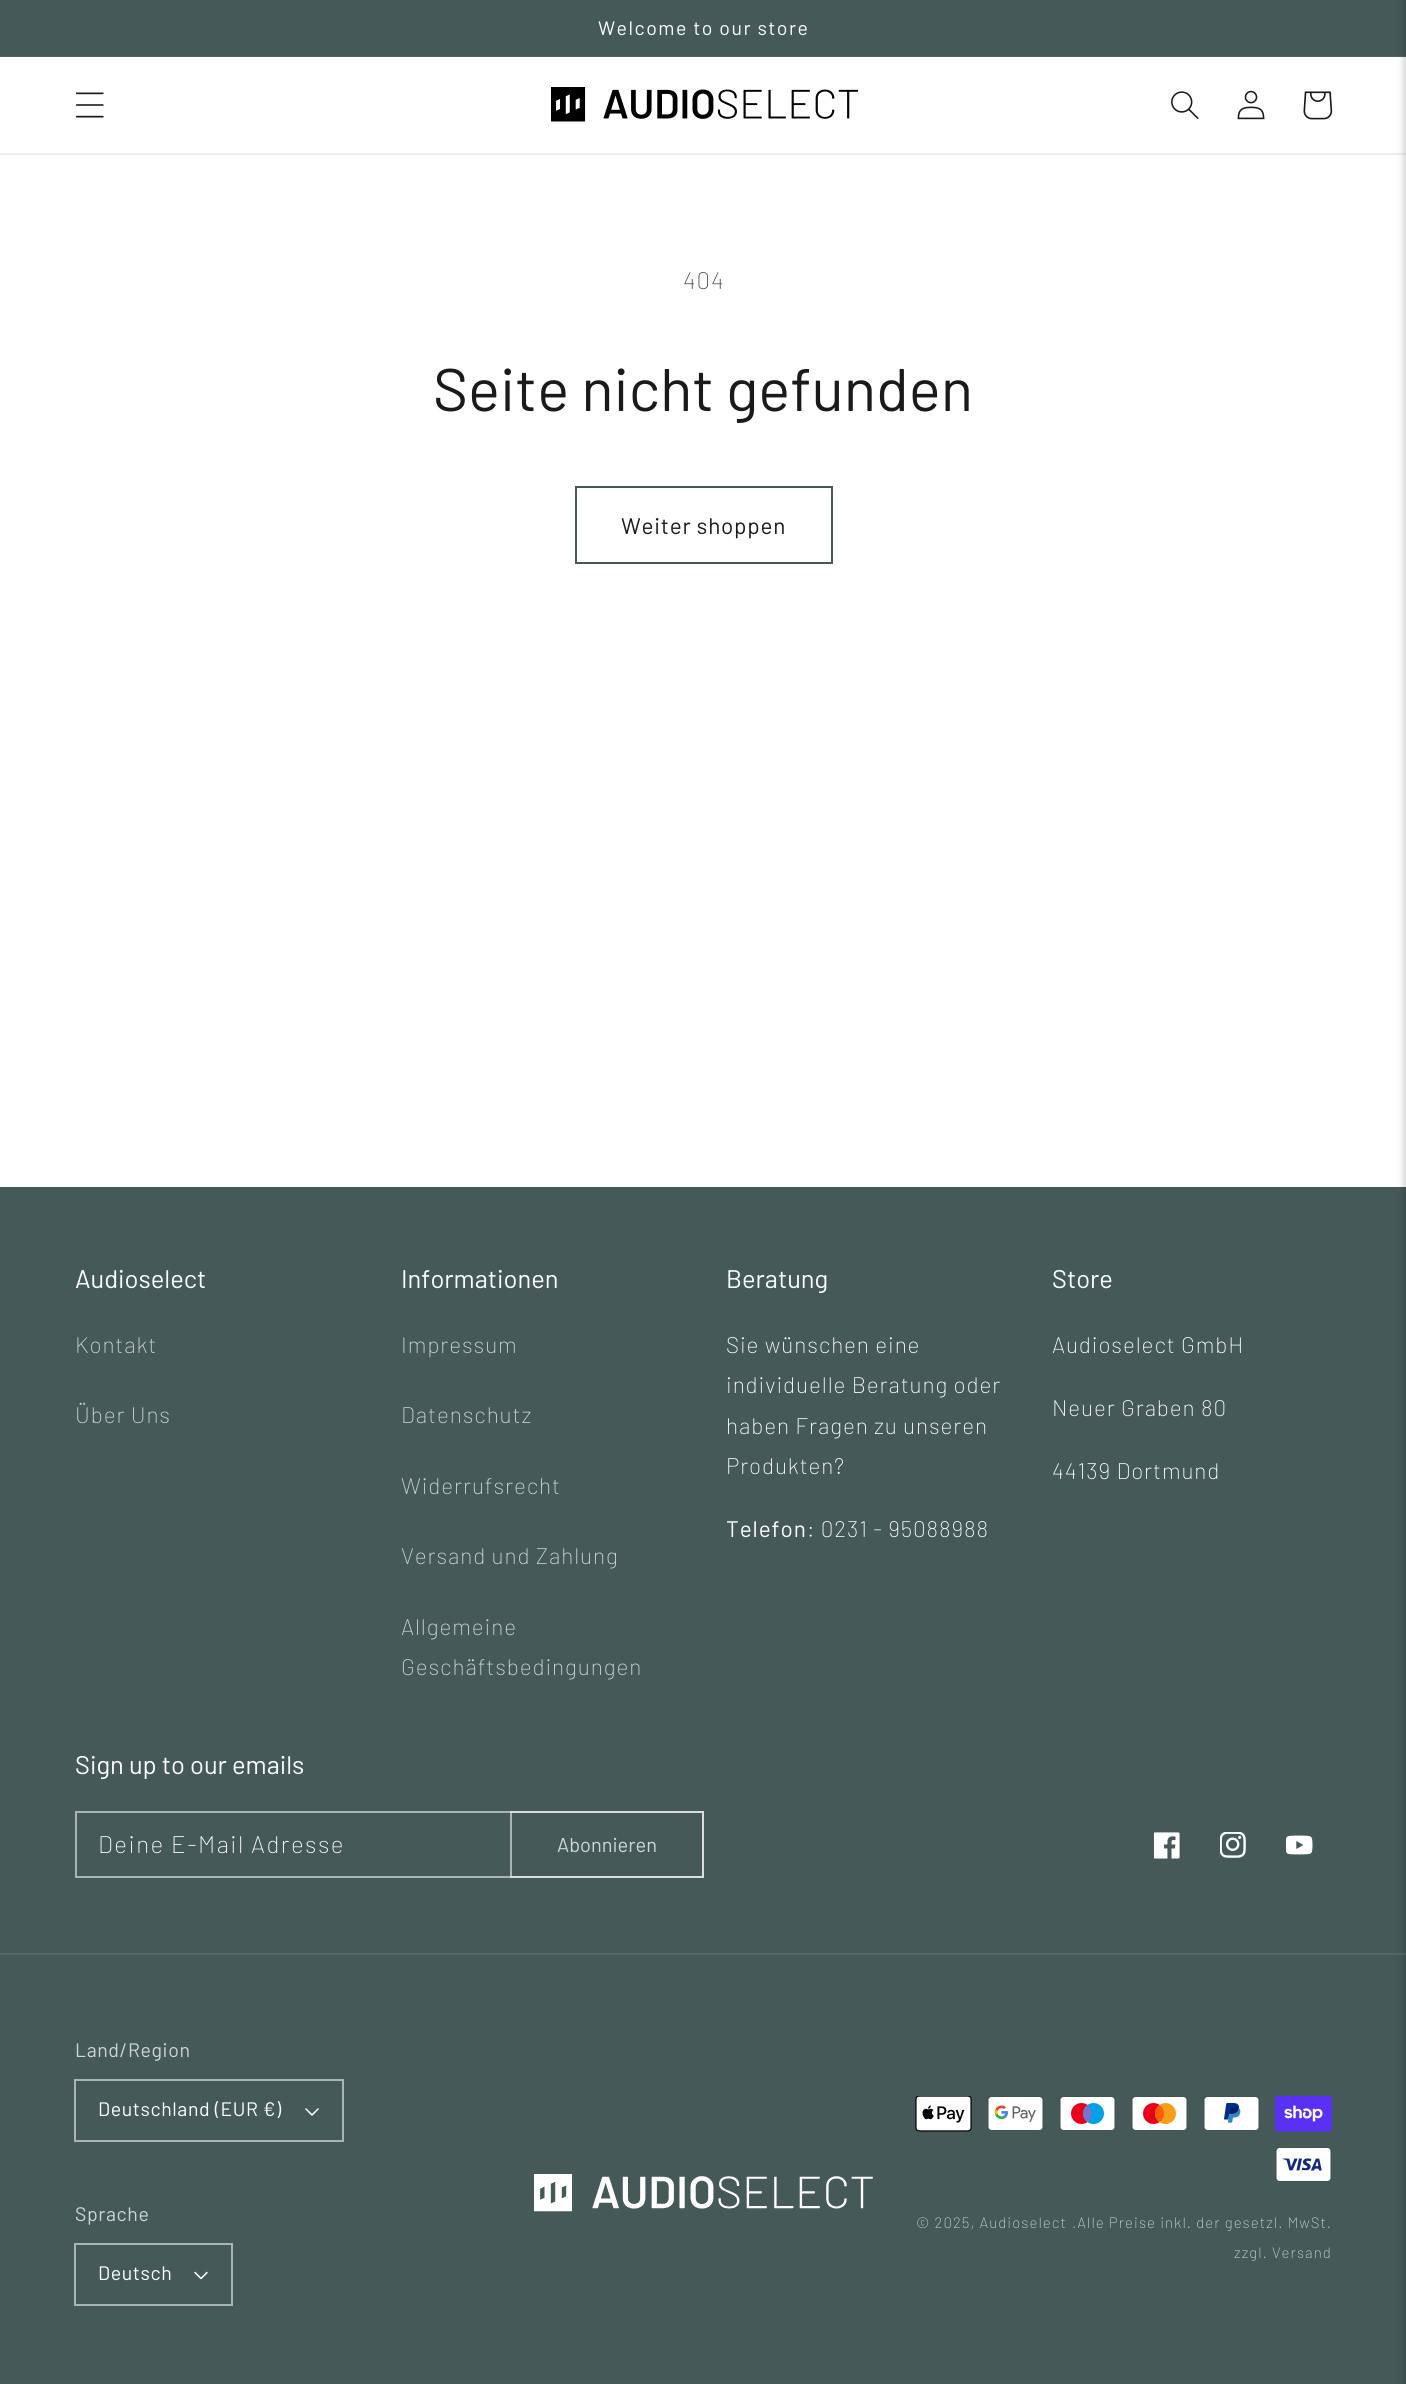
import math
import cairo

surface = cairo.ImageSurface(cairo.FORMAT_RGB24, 1406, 2384)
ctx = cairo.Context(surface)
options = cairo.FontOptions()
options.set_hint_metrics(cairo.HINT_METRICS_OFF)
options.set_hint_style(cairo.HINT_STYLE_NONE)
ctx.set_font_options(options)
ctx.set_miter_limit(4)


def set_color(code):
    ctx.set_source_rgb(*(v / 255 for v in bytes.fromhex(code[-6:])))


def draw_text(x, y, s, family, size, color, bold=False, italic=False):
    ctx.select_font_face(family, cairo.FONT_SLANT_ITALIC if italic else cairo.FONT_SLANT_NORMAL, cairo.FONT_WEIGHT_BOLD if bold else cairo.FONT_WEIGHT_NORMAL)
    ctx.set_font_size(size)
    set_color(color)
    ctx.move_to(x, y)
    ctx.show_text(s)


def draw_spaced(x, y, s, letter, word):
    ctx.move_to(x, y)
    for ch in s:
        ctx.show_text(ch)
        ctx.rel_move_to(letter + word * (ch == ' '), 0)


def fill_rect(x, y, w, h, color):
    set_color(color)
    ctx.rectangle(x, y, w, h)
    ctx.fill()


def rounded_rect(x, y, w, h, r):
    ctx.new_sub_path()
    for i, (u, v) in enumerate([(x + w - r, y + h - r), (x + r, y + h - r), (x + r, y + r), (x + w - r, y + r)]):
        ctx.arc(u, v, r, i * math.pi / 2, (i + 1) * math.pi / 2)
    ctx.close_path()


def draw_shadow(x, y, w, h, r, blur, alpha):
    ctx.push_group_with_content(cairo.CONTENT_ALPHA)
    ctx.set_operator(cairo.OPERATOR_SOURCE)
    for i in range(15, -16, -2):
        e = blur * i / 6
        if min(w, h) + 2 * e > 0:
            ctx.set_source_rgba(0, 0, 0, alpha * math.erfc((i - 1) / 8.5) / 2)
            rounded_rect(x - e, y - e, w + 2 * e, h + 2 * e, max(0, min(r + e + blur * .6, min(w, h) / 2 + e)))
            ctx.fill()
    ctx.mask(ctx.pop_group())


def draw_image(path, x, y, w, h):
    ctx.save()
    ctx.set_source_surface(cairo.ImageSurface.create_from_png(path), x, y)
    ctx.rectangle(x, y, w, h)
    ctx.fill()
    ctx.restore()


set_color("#ffffff")
ctx.paint()
fill_rect(0, 0, 1406, 56, "#445958")
fill_rect(0, 56, 1406, 1, "#536665")
ctx.select_font_face("Barlow")
ctx.set_font_size(19.5)
set_color("#ffffff")
draw_spaced(598, 35, "Welcome to our store", 1.5, 0)
fill_rect(0, 153, 1406, 2, "#ededed")
fill_rect(0, 1187, 1406, 1197, "#445958")
fill_rect(0, 1953, 1406, 2, "#536665")
set_color("#000000")
draw_shadow(1404, 0, 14, 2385, 0, 4, 0.2)
draw_image("assets/img1.png", 75, 92, 29, 26)
draw_image("assets/img2.png", 551, 87, 307, 35)
draw_image("assets/img3.png", 1171, 91, 28, 28)
draw_image("assets/img4.png", 1237, 90, 28, 30)
draw_image("assets/img5.png", 1303, 91, 30, 29)
ctx.select_font_face("Barlow ExtraLight")
ctx.set_font_size(24)
set_color("#535452")
draw_spaced(683, 289, "404", 0.9, 0)
draw_text(433, 411, "Seite nicht gefunden", "Barlow", 60, "#1a1b18")
ctx.rectangle(576, 487, 256, 76)
set_color("#445958")
ctx.stroke()
ctx.set_font_size(22.5)
set_color("#1a1b18")
draw_spaced(621, 534, "Weiter shoppen", 0.75, 0)
draw_text(75, 1288, "Audioselect", "Barlow", 25.5, "#ffffff")
ctx.select_font_face("Barlow ExtraLight")
ctx.set_font_size(22.5)
set_color("#d0d6d5")
draw_spaced(75, 1353, "Kontakt", 0.9, 0)
draw_spaced(75, 1423, "Über Uns", 0.9, 0)
draw_text(401, 1288, "Informationen", "Barlow", 25.5, "#ffffff")
ctx.select_font_face("Barlow ExtraLight")
ctx.set_font_size(22.5)
set_color("#d0d6d5")
draw_spaced(401, 1353, "Impressum", 0.9, 0)
draw_spaced(401, 1423, "Datenschutz", 0.9, 0)
draw_spaced(401, 1494, "Widerrufsrecht", 0.9, 0)
draw_spaced(401, 1564, "Versand und Zahlung", 0.9, 0)
draw_spaced(401, 1635, "Allgemeine", 0.9, 0)
draw_spaced(401, 1675, "Geschäftsbedingungen", 0.9, 0)
draw_text(726, 1288, "Beratung", "Barlow", 25.5, "#ffffff")
ctx.select_font_face("Barlow ExtraLight")
ctx.set_font_size(22.5)
draw_spaced(726, 1353, "Sie wünschen eine", 0.9, 0)
draw_spaced(726, 1393, "individuelle Beratung oder", 0.9, 0)
draw_spaced(726, 1434, "haben Fragen zu unseren", 0.9, 0)
draw_spaced(726, 1474, "Produkten?", 0.9, 0)
ctx.select_font_face("Barlow")
draw_spaced(726, 1537, "Telefon", 0.9, 0)
ctx.select_font_face("Barlow ExtraLight")
draw_spaced(807, 1537, ": 0231 - 95088988", 0.9, 0)
draw_text(1052, 1288, "Store", "Barlow", 25.5, "#ffffff")
ctx.select_font_face("Barlow ExtraLight")
ctx.set_font_size(22.5)
draw_spaced(1052, 1353, "Audioselect GmbH", 0.9, 0)
draw_spaced(1052, 1416, "Neuer Graben 80", 0.9, 0)
draw_spaced(1052, 1479, "44139 Dortmund", 0.9, 0)
draw_text(75, 1774, "Sign up to our emails", "Barlow", 25.5, "#ffffff")
ctx.rectangle(76, 1812, 627, 65)
set_color("#abb4b4")
ctx.stroke()
ctx.select_font_face("Barlow ExtraLight")
ctx.set_font_size(24)
set_color("#ffffff")
draw_spaced(98, 1853, "Deine E-Mail Adresse", 1.5, 0)
ctx.rectangle(511, 1812, 192, 65)
ctx.set_source_rgba(1, 1, 1, 0.55)
ctx.stroke()
draw_text(557, 1852, "Abonnieren", "Barlow", 20, "#d0d6d5")
draw_image("assets/img6.png", 1154, 1832, 26, 27)
draw_image("assets/img7.png", 1220, 1832, 26, 26)
draw_image("assets/img8.png", 1286, 1835, 27, 20)
ctx.set_font_size(19.5)
draw_spaced(75, 2057, "Land/Region", 0.6, 0)
ctx.rectangle(75, 2080, 268, 61)
set_color("#abb4b4")
ctx.stroke()
set_color("#ffffff")
draw_spaced(98, 2116, "Deutschland (EUR €)", 0.6, 0)
draw_image("assets/img9.png", 305, 2108, 14, 8)
set_color("#d0d6d5")
draw_spaced(75, 2221, "Sprache", 0.6, 0)
ctx.rectangle(75, 2244, 157, 61)
set_color("#abb4b4")
ctx.stroke()
set_color("#ffffff")
draw_spaced(98, 2280, "Deutsch", 0.6, 0)
draw_image("assets/img10.png", 194, 2271, 14, 9)
draw_image("assets/img11.png", 534, 2174, 339, 38)
draw_image("assets/img12.png", 915, 2096, 57, 36)
draw_image("assets/img13.png", 987, 2096, 57, 35)
draw_image("assets/img14.png", 1059, 2096, 57, 35)
draw_image("assets/img15.png", 1131, 2096, 57, 35)
draw_image("assets/img16.png", 1203, 2096, 57, 35)
draw_image("assets/img17.png", 1275, 2096, 57, 36)
draw_image("assets/img18.png", 1275, 2147, 57, 35)
ctx.select_font_face("Barlow ExtraLight")
ctx.set_font_size(15)
set_color("#d0d6d5")
draw_spaced(916, 2228, "© 2025, Audioselect", 1.05, 0)
draw_spaced(1072, 2228, ".Alle Preise inkl. der gesetzl. MwSt.", 1.05, 0)
draw_spaced(1234, 2258, "zzgl. Versand", 1.05, 0)
surface.write_to_png("output.png")
